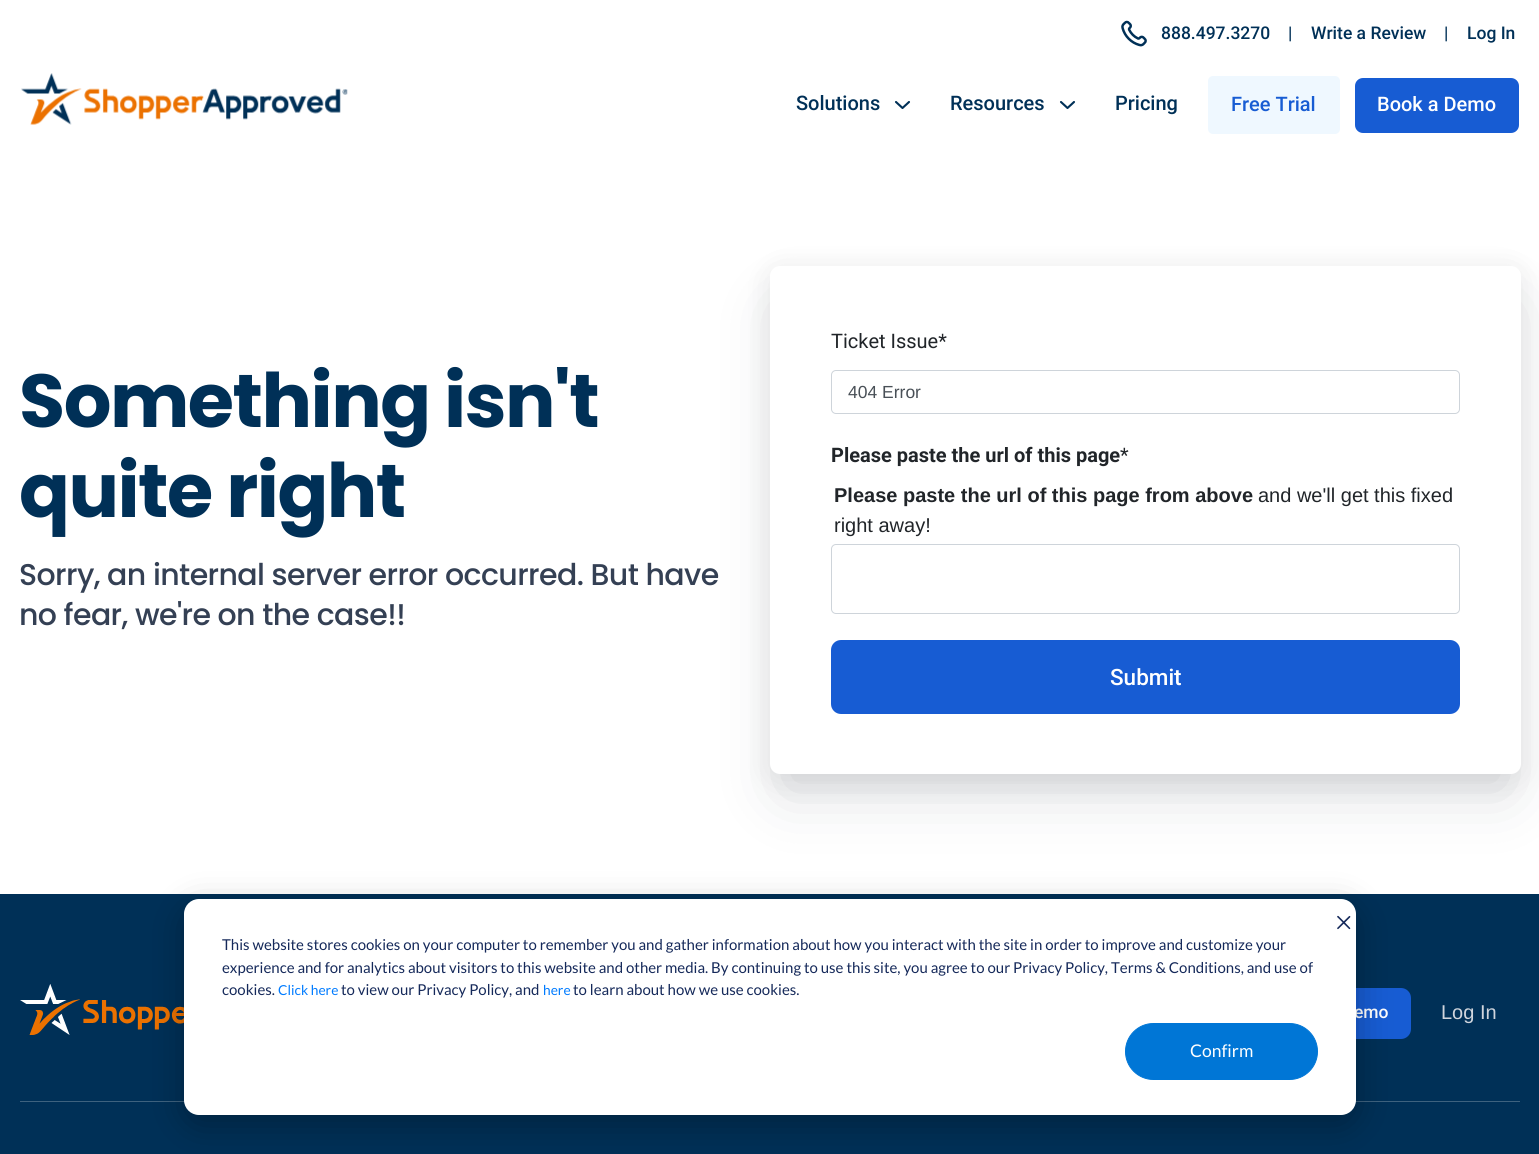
import math
import cairo

surface = cairo.ImageSurface(cairo.FORMAT_RGB24, 1539, 1154)
ctx = cairo.Context(surface)
options = cairo.FontOptions()
options.set_hint_metrics(cairo.HINT_METRICS_OFF)
options.set_hint_style(cairo.HINT_STYLE_NONE)
ctx.set_font_options(options)
ctx.set_miter_limit(4)


def set_color(code):
    ctx.set_source_rgb(*(v / 255 for v in bytes.fromhex(code[-6:])))


def draw_text(x, y, s, family, size, color, bold=False, italic=False):
    ctx.select_font_face(family, cairo.FONT_SLANT_ITALIC if italic else cairo.FONT_SLANT_NORMAL, cairo.FONT_WEIGHT_BOLD if bold else cairo.FONT_WEIGHT_NORMAL)
    ctx.set_font_size(size)
    set_color(color)
    ctx.move_to(x, y)
    ctx.show_text(s)


def draw_spaced(x, y, s, letter, word):
    ctx.move_to(x, y)
    for ch in s:
        ctx.show_text(ch)
        ctx.rel_move_to(letter + word * (ch == ' '), 0)


def fill_rect(x, y, w, h, color):
    set_color(color)
    ctx.rectangle(x, y, w, h)
    ctx.fill()


def rounded_rect(x, y, w, h, r):
    ctx.new_sub_path()
    for i, (u, v) in enumerate([(x + w - r, y + h - r), (x + r, y + h - r), (x + r, y + r), (x + w - r, y + r)]):
        ctx.arc(u, v, r, i * math.pi / 2, (i + 1) * math.pi / 2)
    ctx.close_path()


def draw_shadow(x, y, w, h, r, blur, alpha):
    ctx.push_group_with_content(cairo.CONTENT_ALPHA)
    ctx.set_operator(cairo.OPERATOR_SOURCE)
    for i in range(15, -16, -2):
        e = blur * i / 6
        if min(w, h) + 2 * e > 0:
            ctx.set_source_rgba(0, 0, 0, alpha * math.erfc((i - 1) / 8.5) / 2)
            rounded_rect(x - e, y - e, w + 2 * e, h + 2 * e, max(0, min(r + e + blur * .6, min(w, h) / 2 + e)))
            ctx.fill()
    ctx.mask(ctx.pop_group())


def draw_image(path, x, y, w, h):
    ctx.save()
    ctx.set_source_surface(cairo.ImageSurface.create_from_png(path), x, y)
    ctx.rectangle(x, y, w, h)
    ctx.fill()
    ctx.restore()


set_color("#ffffff")
ctx.paint()
draw_image("assets/img1.png", 1121, 20, 26, 27)
draw_text(1161, 39, "888.497.3270", "Roboto Medium", 17.5, "#003057")
draw_text(1288, 39, "|", "Roboto Medium", 17.5, "#003057")
draw_text(1311, 39, "Write a Review", "Roboto Medium", 17.5, "#003057")
draw_text(1444, 39, "|", "Roboto Medium", 17.5, "#003057")
draw_text(1467, 39, "Log In", "Roboto Medium", 17.5, "#003057")
draw_image("assets/img2.png", 21, 73, 327, 52)
draw_text(796, 110, "Solutions", "Roboto Medium", 20, "#003057")
ctx.new_path()
ctx.move_to(896, 102)
ctx.line_to(902.5, 108)
ctx.line_to(909, 102)
ctx.set_line_width(2.1)
ctx.set_line_cap(cairo.LINE_CAP_ROUND)
ctx.set_line_join(cairo.LINE_JOIN_ROUND)
ctx.stroke()
draw_text(950, 110, "Resources", "Roboto Medium", 20, "#003057")
ctx.new_path()
ctx.move_to(1061, 102)
ctx.line_to(1067.5, 108)
ctx.line_to(1074, 102)
ctx.stroke()
draw_text(1115, 110, "Pricing", "Roboto Medium", 20, "#003057")
set_color("#eff8ff")
rounded_rect(1208, 76, 132, 58, 5)
ctx.fill()
draw_text(1231, 111, "Free Trial", "Roboto Medium", 20, "#175cd3")
rounded_rect(1355, 78, 164, 55, 8)
ctx.fill()
draw_text(1377, 111, "Book a Demo", "Roboto Medium", 20, "#ffffff")
ctx.select_font_face("Poppins", cairo.FONT_SLANT_NORMAL, cairo.FONT_WEIGHT_BOLD)
ctx.set_font_size(75)
set_color("#003057")
draw_spaced(19, 427, "Something isn't", -1.5, 0)
draw_spaced(19, 517, "quite right", -1.5, 0)
ctx.select_font_face("Poppins Medium")
ctx.set_font_size(30)
set_color("#344054")
draw_spaced(19, 585, "Sorry, an internal server error occurred. But have", -0.6, 0)
draw_spaced(19, 625, "no fear, we're on the case!!", -0.6, 0)
set_color("#101828")
draw_shadow(785, 311, 721, 478, 0, 30, 0.18)
set_color("#000000")
draw_shadow(770, 271, 751, 508, 10, 15, 0.08)
set_color("#ffffff")
rounded_rect(770, 266, 751, 508, 10)
ctx.fill()
draw_text(831, 348, "Ticket Issue*", "Roboto", 20, "#212529")
rounded_rect(831.5, 370.5, 628, 43, 4.5)
set_color("#ced4da")
ctx.set_line_width(1)
ctx.set_line_cap(cairo.LINE_CAP_BUTT)
ctx.set_line_join(cairo.LINE_JOIN_MITER)
ctx.stroke()
draw_text(848, 398, "404 Error", "Liberation Sans", 17.5, "#495057")
draw_text(831, 462, "Please paste the url of this page", "Roboto", 20, "#212529", bold=True)
draw_text(1120, 462, "*", "Roboto", 20, "#212529")
draw_text(834, 502, "Please paste the url of this page from above", "Liberation Sans", 20, "#212529", bold=True)
draw_text(1258, 502, "and we'll get this fixed", "Liberation Sans", 20, "#212529")
draw_text(834, 532, "right away!", "Liberation Sans", 20, "#212529")
rounded_rect(831.5, 544.5, 628, 69, 4.5)
set_color("#ced4da")
ctx.stroke()
set_color("#175cd3")
rounded_rect(831, 640, 629, 74, 10)
ctx.fill()
draw_text(1110, 685, "Submit", "Roboto Medium", 22.5, "#ffffff")
fill_rect(0, 894, 1539, 260, "#003057")
draw_image("assets/img3.png", 20, 984, 164, 51)
set_color("#175cd3")
rounded_rect(1263, 988, 148, 51, 10)
ctx.fill()
draw_text(1354, 1018, "emo", "Roboto Medium", 17.5, "#ffffff")
draw_text(1441, 1019, "Log In", "Liberation Sans", 20, "#d0d5dd")
fill_rect(20, 1101, 1500, 1, "#3e627f")
set_color("#000000")
draw_shadow(184, 909, 1172, 216, 15, 17.5, 0.28)
set_color("#ffffff")
rounded_rect(184, 899, 1172, 216, 15)
ctx.fill()
draw_image("assets/img4.png", 1337, 915, 14, 15)
draw_text(222, 950, "This website stores cookies on your computer to remember you and gather information about how you interact with the site in order to improve and customize your", "Lato", 15, "#15295a")
draw_text(222, 973, "experience and for analytics about visitors to this website and other media. By continuing to use this site, you agree to our Privacy Policy, Terms & Conditions, and use of", "Lato", 15, "#15295a")
draw_text(222, 995, "cookies.", "Lato", 15, "#15295a")
draw_text(278, 995, "Click here", "Lato", 13.75, "#007bff")
draw_text(341, 995, "to view our Privacy Policy, and", "Lato", 15, "#15295a")
draw_text(543, 995, "here", "Lato", 13.75, "#007bff")
draw_text(573, 995, "to learn about how we use cookies.", "Lato", 15, "#15295a")
set_color("#0076d6")
rounded_rect(1125.5, 1023.5, 192, 56, 28)
ctx.fill_preserve()
ctx.stroke()
draw_text(1190, 1057, "Confirm", "Lato", 17.5, "#ffffff")
surface.write_to_png("output.png")
